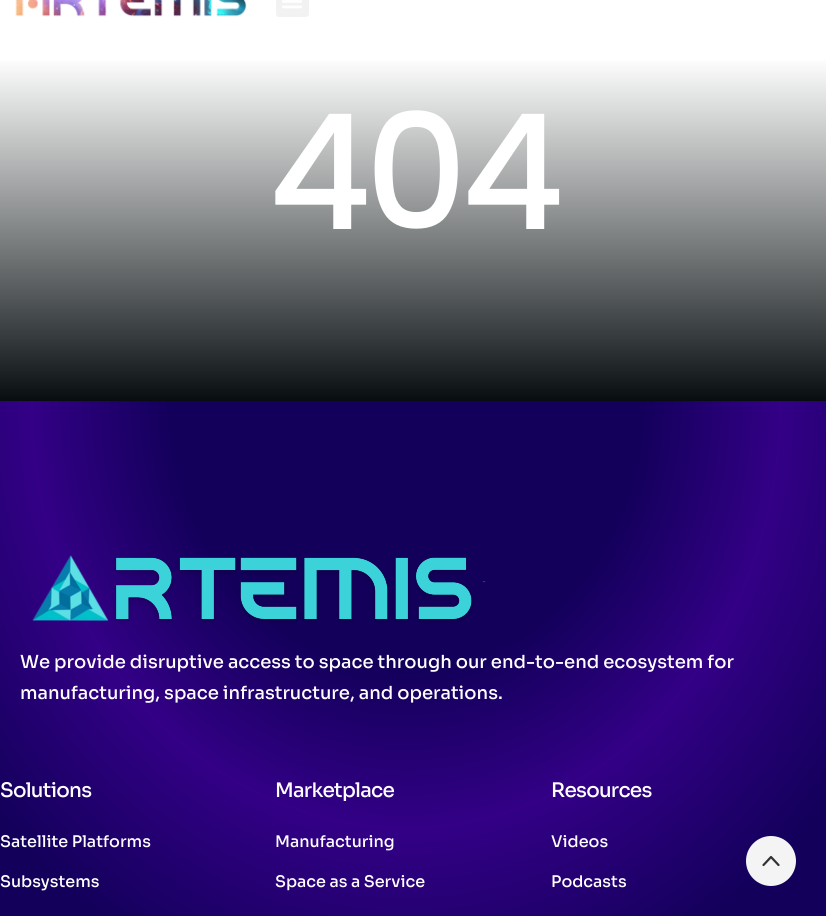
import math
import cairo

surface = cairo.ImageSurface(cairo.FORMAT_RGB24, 826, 916)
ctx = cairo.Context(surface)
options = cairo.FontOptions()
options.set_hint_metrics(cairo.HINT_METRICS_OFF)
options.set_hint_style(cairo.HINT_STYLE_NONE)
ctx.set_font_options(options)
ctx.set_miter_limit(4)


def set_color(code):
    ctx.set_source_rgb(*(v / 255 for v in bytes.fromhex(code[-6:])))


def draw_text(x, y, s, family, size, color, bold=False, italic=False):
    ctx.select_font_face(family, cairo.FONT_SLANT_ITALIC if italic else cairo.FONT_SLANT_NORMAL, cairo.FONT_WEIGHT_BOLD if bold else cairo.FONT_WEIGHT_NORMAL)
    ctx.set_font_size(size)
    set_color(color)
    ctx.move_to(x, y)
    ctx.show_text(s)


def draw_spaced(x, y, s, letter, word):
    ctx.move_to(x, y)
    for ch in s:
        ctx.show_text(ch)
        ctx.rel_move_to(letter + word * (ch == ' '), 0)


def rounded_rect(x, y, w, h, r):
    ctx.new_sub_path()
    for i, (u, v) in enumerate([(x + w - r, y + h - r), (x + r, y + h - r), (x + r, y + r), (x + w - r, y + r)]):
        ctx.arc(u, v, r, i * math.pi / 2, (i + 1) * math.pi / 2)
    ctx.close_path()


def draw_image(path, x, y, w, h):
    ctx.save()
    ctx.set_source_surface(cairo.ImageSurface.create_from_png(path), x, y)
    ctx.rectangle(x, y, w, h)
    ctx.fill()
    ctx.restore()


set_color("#ffffff")
ctx.paint()
draw_image("assets/img1.png", 15, 0, 232, 17)
set_color("#f2f2f2")
rounded_rect(276, -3, 33, 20, 3)
ctx.fill()
draw_image("assets/img2.png", 282, 0, 20, 9)
gradient = cairo.LinearGradient(413, 57, 413, 401)
gradient.add_color_stop_rgba(0, 1, 1, 1, 1)
gradient.add_color_stop_rgba(1, 0.031, 0.055, 0.063, 1)
ctx.set_source(gradient)
ctx.rectangle(0, 60, 826, 341)
ctx.fill()
ctx.select_font_face("Poppins Medium")
ctx.set_font_size(160)
set_color("#ffffff")
draw_spaced(268, 229, "404", -6.5, 0)
gradient = cairo.RadialGradient(0, 0, 0, 0, 0, 1)
gradient.set_matrix(cairo.Matrix(1 / 1573, 0, 0, 1 / 1783, -1 * 406 / 1573, -1 * 401 / 1783))
gradient.add_color_stop_rgba(0.15, 0.075, 0, 0.357, 1)
gradient.add_color_stop_rgba(0.24, 0.2, 0, 0.525, 1)
gradient.add_color_stop_rgba(0.35, 0.075, 0, 0.357, 1)
gradient.add_color_stop_rgba(1, 0.075, 0, 0.357, 1)
ctx.set_source(gradient)
ctx.rectangle(0, 401, 826, 515)
ctx.fill()
draw_image("assets/img3.png", 32, 555, 454, 69)
draw_text(20, 668, "We provide disruptive access to space through our end-to-end ecosystem for", "Sora Medium", 18, "#ffffff")
draw_text(20, 699, "manufacturing, space infrastructure, and operations.", "Sora Medium", 18, "#ffffff")
ctx.set_font_size(20)
draw_spaced(0, 797, "Solutions", -0.75, 0)
draw_text(0, 847, "Satellite Platforms", "Sora Medium", 16, "#ffffff")
draw_text(0, 887, "Subsystems", "Sora Medium", 16, "#ffffff")
ctx.set_font_size(20)
draw_spaced(275, 797, "Marketplace", -0.75, 0)
draw_text(275, 847, "Manufacturing", "Sora Medium", 16, "#ffffff")
draw_text(275, 887, "Space as a Service", "Sora Medium", 16, "#ffffff")
ctx.set_font_size(20)
draw_spaced(551, 797, "Resources", -0.75, 0)
draw_text(551, 847, "Videos", "Sora Medium", 16, "#ffffff")
draw_text(551, 887, "Podcasts", "Sora Medium", 16, "#ffffff")
set_color("#f4f4f5")
ctx.new_path()
ctx.arc(771, 861, 25, 0, 2 * math.pi)
ctx.fill()
ctx.new_path()
ctx.move_to(763.5, 865)
ctx.line_to(771, 857)
ctx.line_to(778.5, 865)
set_color("#333333")
ctx.set_line_width(2.2)
ctx.set_line_cap(cairo.LINE_CAP_ROUND)
ctx.set_line_join(cairo.LINE_JOIN_ROUND)
ctx.stroke()
surface.write_to_png("output.png")
